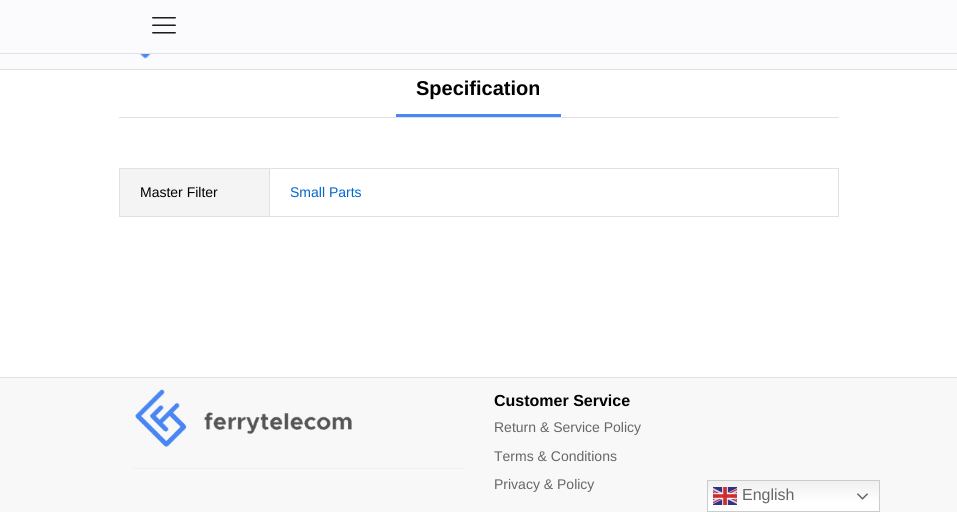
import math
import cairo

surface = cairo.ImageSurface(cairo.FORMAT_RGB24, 957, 512)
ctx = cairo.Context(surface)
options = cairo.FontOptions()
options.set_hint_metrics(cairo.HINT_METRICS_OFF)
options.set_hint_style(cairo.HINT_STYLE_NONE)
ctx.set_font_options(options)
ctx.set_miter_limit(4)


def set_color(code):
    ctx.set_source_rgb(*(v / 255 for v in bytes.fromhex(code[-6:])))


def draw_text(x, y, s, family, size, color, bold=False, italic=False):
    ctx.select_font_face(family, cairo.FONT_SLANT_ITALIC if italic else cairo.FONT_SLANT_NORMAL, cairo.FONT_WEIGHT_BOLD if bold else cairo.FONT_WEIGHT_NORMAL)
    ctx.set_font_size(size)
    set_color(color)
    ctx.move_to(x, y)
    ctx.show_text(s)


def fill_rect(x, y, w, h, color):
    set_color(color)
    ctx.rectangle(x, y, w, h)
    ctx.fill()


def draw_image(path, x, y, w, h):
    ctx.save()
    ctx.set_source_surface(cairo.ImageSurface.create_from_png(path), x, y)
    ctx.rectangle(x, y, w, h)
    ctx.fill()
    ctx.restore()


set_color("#ffffff")
ctx.paint()
fill_rect(0, 0, 957, 53, "#fbfbfd")
fill_rect(0, 53, 957, 1, "#e1e1e1")
draw_image("assets/img1.png", 152, 17, 24, 17)
fill_rect(0, 54, 957, 15, "#fbfbfd")
fill_rect(0, 69, 957, 1, "#e1e1e1")
draw_image("assets/img2.png", 139, 54, 12, 5)
fill_rect(119, 117, 720, 1, "#e1e1e1")
draw_text(416, 95, "Specification", "Liberation Sans", 20, "#000000", bold=True)
fill_rect(396, 114, 165, 3, "#4887f4")
fill_rect(119, 168, 720, 1, "#e1e1e1")
fill_rect(838, 168, 1, 49, "#e1e1e1")
fill_rect(119, 168, 1, 49, "#e1e1e1")
fill_rect(120, 169, 149, 47, "#f4f4f4")
fill_rect(269, 216, 570, 1, "#e1e1e1")
fill_rect(269, 168, 1, 49, "#e1e1e1")
fill_rect(119, 216, 151, 1, "#e1e1e1")
draw_text(140, 197, "Master Filter", "Liberation Sans", 14, "#000000")
draw_text(290, 197, "Small Parts", "Liberation Sans", 14, "#0066cc")
fill_rect(0, 377, 957, 1, "#e1e1e1")
fill_rect(0, 378, 957, 134, "#f8f8f8")
draw_image("assets/img3.png", 135, 389, 217, 59)
fill_rect(134, 468, 330, 1, "#eeeeee")
draw_text(494, 406, "Customer Service", "Liberation Sans", 16, "#000000", bold=True)
draw_text(494, 432, "Return & Service Policy", "Liberation Sans", 14, "#666666")
draw_text(494, 461, "Terms & Conditions", "Liberation Sans", 14, "#666666")
draw_text(494, 489, "Privacy & Policy", "Liberation Sans", 14, "#666666")
gradient = cairo.LinearGradient(794, 480, 794, 512)
gradient.add_color_stop_rgba(0, 0.937, 0.937, 0.937, 1)
gradient.add_color_stop_rgba(0.7, 1, 1, 1, 1)
ctx.set_source(gradient)
ctx.rectangle(708, 481, 171, 30)
ctx.fill()
ctx.rectangle(707.5, 480.5, 172, 31)
set_color("#cccccc")
ctx.set_line_width(1)
ctx.stroke()
draw_image("assets/img4.png", 713, 487, 24, 18)
draw_text(742, 500, "English", "Liberation Sans", 16, "#666666")
draw_image("assets/img5.png", 857, 493, 11, 7)
surface.write_to_png("output.png")
